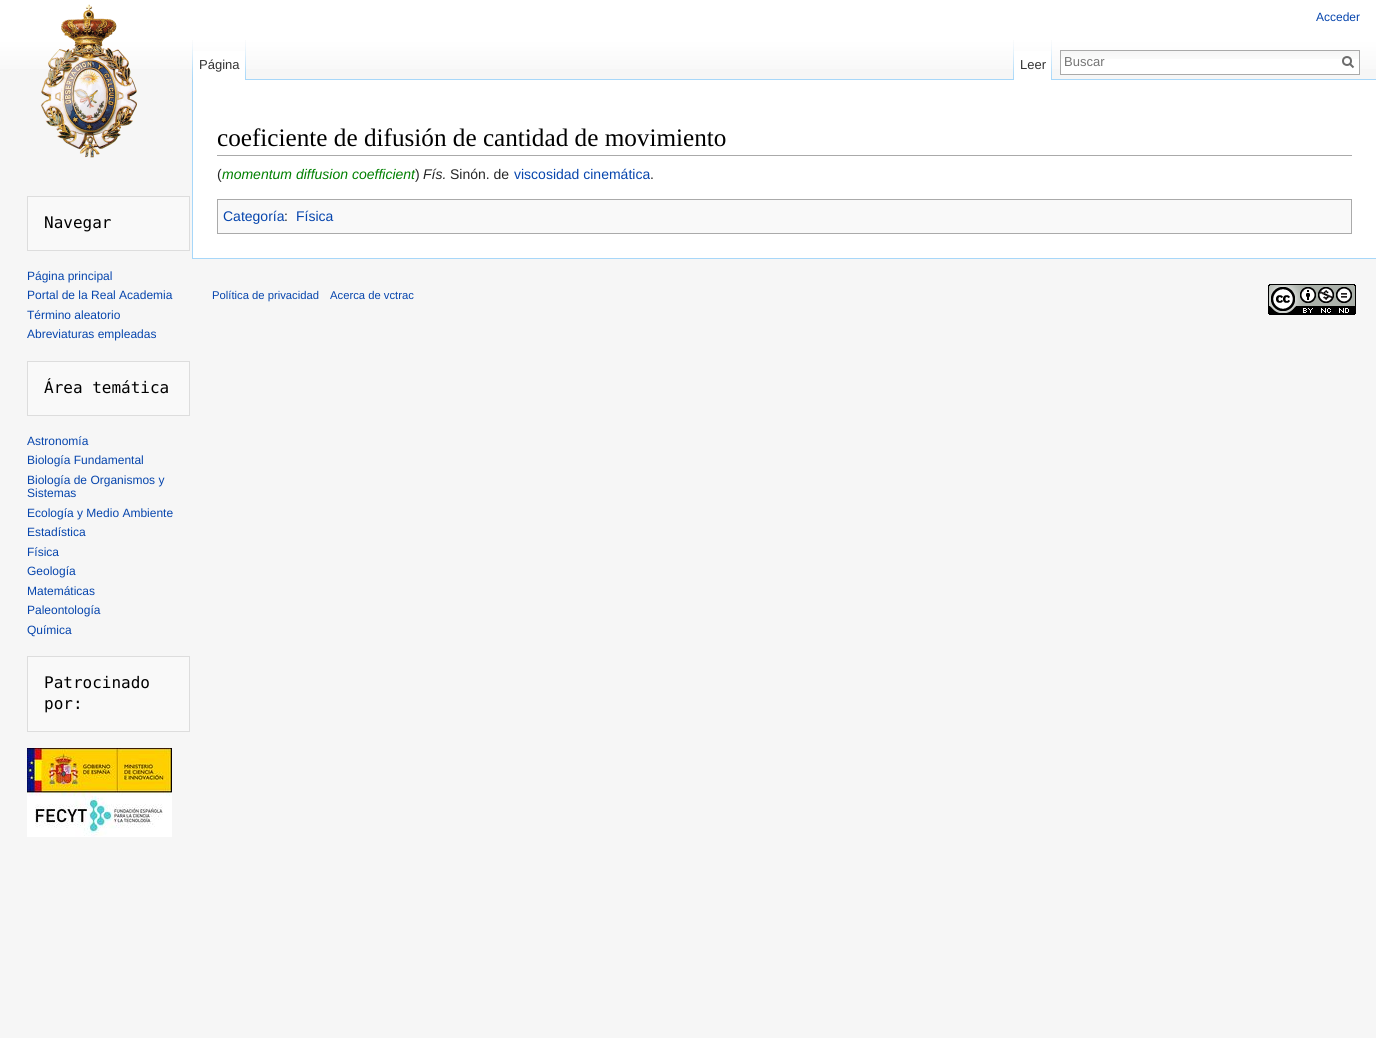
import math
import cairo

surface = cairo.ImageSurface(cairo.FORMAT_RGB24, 1376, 1038)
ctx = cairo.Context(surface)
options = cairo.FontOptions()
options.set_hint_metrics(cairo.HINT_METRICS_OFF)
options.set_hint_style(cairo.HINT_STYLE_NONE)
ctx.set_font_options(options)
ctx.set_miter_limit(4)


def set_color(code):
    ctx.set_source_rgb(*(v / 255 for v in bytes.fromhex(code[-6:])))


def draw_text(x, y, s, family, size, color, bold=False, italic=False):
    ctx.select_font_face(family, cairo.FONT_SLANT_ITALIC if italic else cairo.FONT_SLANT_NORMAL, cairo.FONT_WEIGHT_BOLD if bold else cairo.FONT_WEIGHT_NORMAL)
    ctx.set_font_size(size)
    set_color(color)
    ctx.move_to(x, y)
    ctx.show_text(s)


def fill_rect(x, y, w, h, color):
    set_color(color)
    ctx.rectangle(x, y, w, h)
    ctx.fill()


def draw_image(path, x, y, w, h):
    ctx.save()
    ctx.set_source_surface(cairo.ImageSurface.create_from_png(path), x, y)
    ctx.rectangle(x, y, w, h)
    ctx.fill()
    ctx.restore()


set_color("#f6f6f6")
ctx.paint()
gradient = cairo.LinearGradient(688, 0, 688, 80)
gradient.add_color_stop_rgba(0.5, 1, 1, 1, 1)
gradient.add_color_stop_rgba(1, 0.965, 0.965, 0.965, 1)
ctx.set_source(gradient)
ctx.rectangle(0, 0, 1376, 69)
ctx.fill()
draw_text(1316, 21, "Acceder", "Liberation Sans", 12, "#0645ad")
draw_image("assets/img1.png", 192, 40, 1, 39)
fill_rect(193, 51, 52, 29, "#ffffff")
draw_image("assets/img2.png", 245, 40, 1, 40)
draw_text(199, 69, "Página", "Liberation Sans", 13, "#333333")
draw_image("assets/img1.png", 1013, 40, 1, 39)
fill_rect(246, 79, 1130, 1, "#a7d7f9")
fill_rect(1014, 51, 37, 29, "#ffffff")
draw_image("assets/img2.png", 1051, 40, 1, 40)
draw_text(1020, 69, "Leer", "Liberation Sans", 13, "#333333")
fill_rect(1061, 59, 298, 15, "#ffffff")
draw_image("assets/img3.png", 1061, 51, 298, 8)
ctx.rectangle(1060.5, 50.5, 299, 24)
set_color("#aaaaaa")
ctx.set_line_width(1)
ctx.stroke()
draw_text(1064, 66, "Buscar", "Liberation Sans", 13, "#757575")
ctx.new_path()
ctx.move_to(1353.5, 67.5)
ctx.line_to(1349.5, 63.5)
set_color("#6c6c6c")
ctx.set_line_width(2)
ctx.stroke()
ctx.arc(1347, 61, 4, 0, 2 * math.pi)
ctx.stroke()
draw_image("assets/img4.png", 41, 4, 96, 154)
set_color("#f9f9f9")
ctx.rectangle(27.5, 196.5, 162, 54)
ctx.fill_preserve()
set_color("#dddddd")
ctx.set_line_width(1)
ctx.stroke()
draw_text(44, 228, "Navegar", "DejaVu Sans Mono", 16, "#000000")
draw_text(27, 280, "Página principal", "Liberation Sans", 12, "#0645ad")
draw_text(27, 299, "Portal de la Real Academia", "Liberation Sans", 12, "#0645ad")
draw_text(27, 319, "Término aleatorio", "Liberation Sans", 12, "#0645ad")
draw_text(27, 338, "Abreviaturas empleadas", "Liberation Sans", 12, "#0645ad")
set_color("#f9f9f9")
ctx.rectangle(27.5, 361.5, 162, 54)
ctx.fill_preserve()
set_color("#dddddd")
ctx.stroke()
draw_text(44, 393, "Área temática", "DejaVu Sans Mono", 16, "#000000")
draw_text(27, 445, "Astronomía", "Liberation Sans", 12, "#0645ad")
draw_text(27, 464, "Biología Fundamental", "Liberation Sans", 12, "#0645ad")
draw_text(27, 484, "Biología de Organismos y", "Liberation Sans", 12, "#0645ad")
draw_text(27, 497, "Sistemas", "Liberation Sans", 12, "#0645ad")
draw_text(27, 517, "Ecología y Medio Ambiente", "Liberation Sans", 12, "#0645ad")
draw_text(27, 536, "Estadística", "Liberation Sans", 12, "#0645ad")
draw_text(27, 556, "Física", "Liberation Sans", 12, "#0645ad")
draw_text(27, 575, "Geología", "Liberation Sans", 12, "#0645ad")
draw_text(27, 595, "Matemáticas", "Liberation Sans", 12, "#0645ad")
draw_text(27, 614, "Paleontología", "Liberation Sans", 12, "#0645ad")
draw_text(27, 634, "Química", "Liberation Sans", 12, "#0645ad")
set_color("#f9f9f9")
ctx.rectangle(27.5, 656.5, 162, 75)
ctx.fill_preserve()
set_color("#dddddd")
ctx.stroke()
draw_text(44, 688, "Patrocinado", "DejaVu Sans Mono", 16, "#000000")
draw_text(44, 709, "por:", "DejaVu Sans Mono", 16, "#000000")
draw_image("assets/img5.png", 27, 748, 145, 89)
fill_rect(193, 80, 1183, 178, "#ffffff")
fill_rect(192, 258, 1184, 1, "#a7d7f9")
fill_rect(192, 79, 1, 180, "#a7d7f9")
fill_rect(217, 155, 1135, 1, "#aaaaaa")
draw_text(217, 146, "coeficiente de difusión de cantidad de movimiento", "Liberation Serif", 25.2, "#000000")
draw_text(217, 179, "(", "Liberation Sans", 14, "#252525")
draw_text(222, 179, "momentum diffusion coefficient", "Liberation Sans", 14, "#008000", italic=True)
draw_text(415, 179, ")", "Liberation Sans", 14, "#252525")
draw_text(423, 179, "Fís.", "Liberation Sans", 14, "#252525", italic=True)
draw_text(450, 179, "Sinón. de", "Liberation Sans", 14, "#252525")
draw_text(514, 179, "viscosidad cinemática", "Liberation Sans", 14, "#0645ad")
draw_text(650, 179, ".", "Liberation Sans", 14, "#252525")
set_color("#f9f9f9")
ctx.rectangle(217.5, 199.5, 1134, 34)
ctx.fill_preserve()
set_color("#aaaaaa")
ctx.stroke()
draw_text(223, 221, "Categoría", "Liberation Sans", 14, "#0645ad")
draw_text(284, 221, ":", "Liberation Sans", 14, "#252525")
draw_text(296, 221, "Física", "Liberation Sans", 14, "#0645ad")
draw_text(212, 299, "Política de privacidad", "Liberation Sans", 11.25, "#0645ad")
draw_text(330, 299, "Acerca de vctrac", "Liberation Sans", 11.25, "#0645ad")
draw_image("assets/img6.png", 1268, 284, 88, 31)
surface.write_to_png("output.png")
